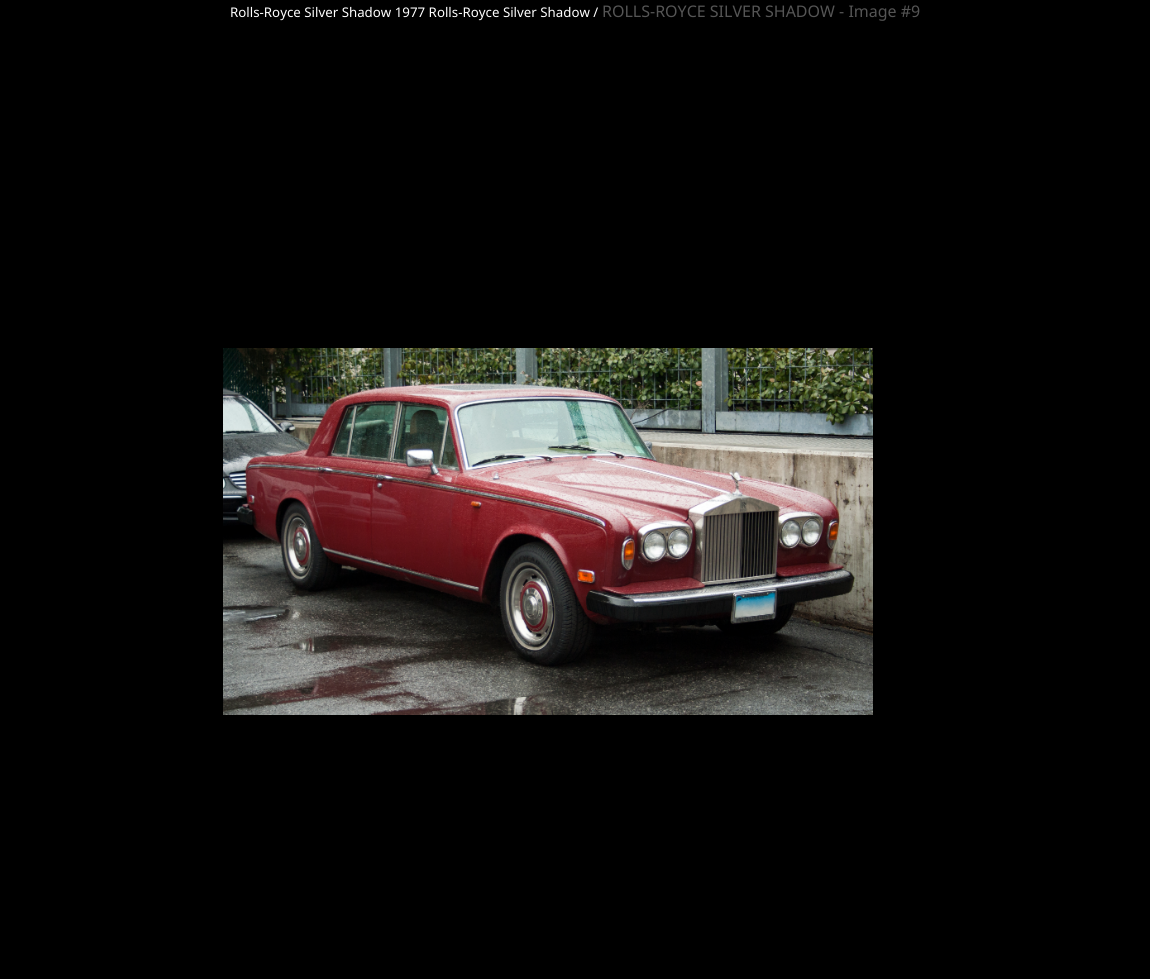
import math
import cairo

surface = cairo.ImageSurface(cairo.FORMAT_RGB24, 1150, 979)
ctx = cairo.Context(surface)
options = cairo.FontOptions()
options.set_hint_metrics(cairo.HINT_METRICS_OFF)
options.set_hint_style(cairo.HINT_STYLE_NONE)
ctx.set_font_options(options)
ctx.set_miter_limit(4)


def set_color(code):
    ctx.set_source_rgb(*(v / 255 for v in bytes.fromhex(code[-6:])))


def draw_text(x, y, s, family, size, color, bold=False, italic=False):
    ctx.select_font_face(family, cairo.FONT_SLANT_ITALIC if italic else cairo.FONT_SLANT_NORMAL, cairo.FONT_WEIGHT_BOLD if bold else cairo.FONT_WEIGHT_NORMAL)
    ctx.set_font_size(size)
    set_color(color)
    ctx.move_to(x, y)
    ctx.show_text(s)


def draw_image(path, x, y, w, h):
    ctx.save()
    ctx.set_source_surface(cairo.ImageSurface.create_from_png(path), x, y)
    ctx.rectangle(x, y, w, h)
    ctx.fill()
    ctx.restore()


set_color("#000000")
ctx.paint()
draw_text(230, 17, "Rolls-Royce Silver Shadow 1977 Rolls-Royce Silver Shadow /", "Noto Sans", 13.3, "#ffffff")
draw_text(602, 17, "ROLLS-ROYCE SILVER SHADOW - Image #9", "Noto Sans", 16, "#555555")
draw_image("assets/img1.png", 223, 348, 650, 367)
surface.write_to_png("output.png")
